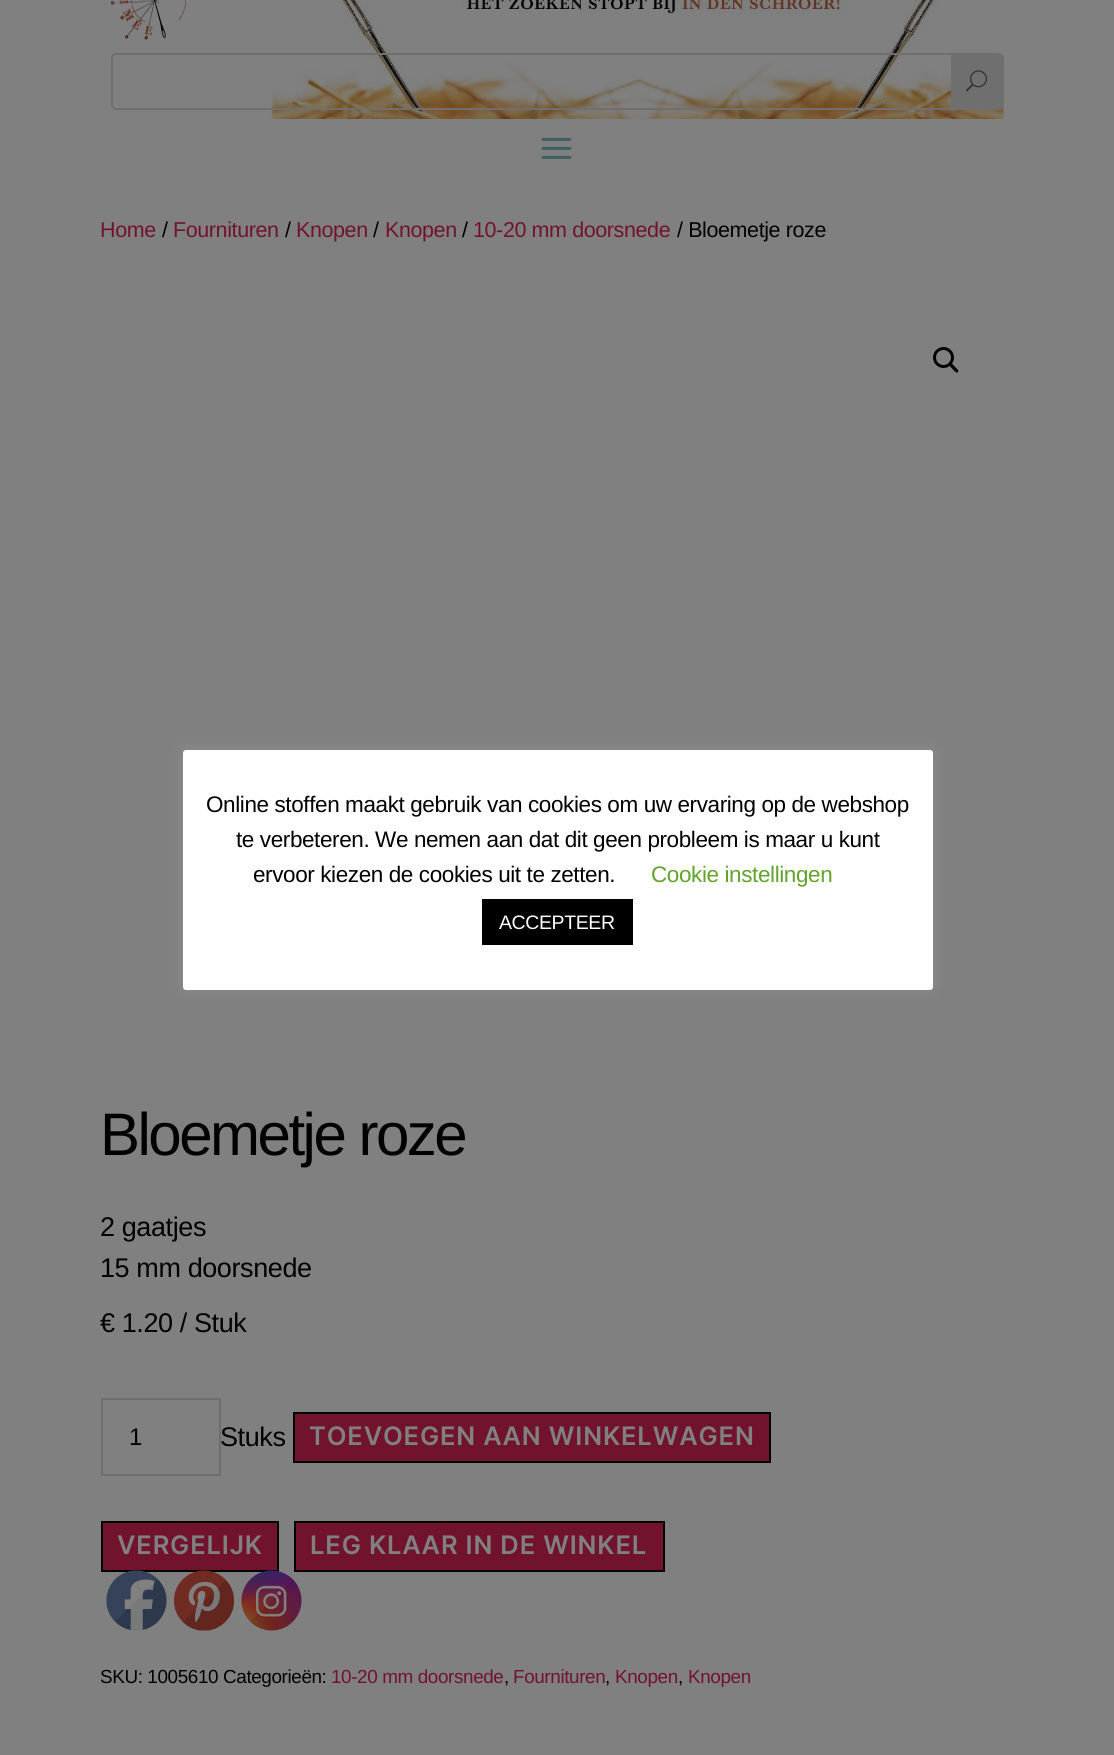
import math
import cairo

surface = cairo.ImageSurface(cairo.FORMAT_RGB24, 1114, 1755)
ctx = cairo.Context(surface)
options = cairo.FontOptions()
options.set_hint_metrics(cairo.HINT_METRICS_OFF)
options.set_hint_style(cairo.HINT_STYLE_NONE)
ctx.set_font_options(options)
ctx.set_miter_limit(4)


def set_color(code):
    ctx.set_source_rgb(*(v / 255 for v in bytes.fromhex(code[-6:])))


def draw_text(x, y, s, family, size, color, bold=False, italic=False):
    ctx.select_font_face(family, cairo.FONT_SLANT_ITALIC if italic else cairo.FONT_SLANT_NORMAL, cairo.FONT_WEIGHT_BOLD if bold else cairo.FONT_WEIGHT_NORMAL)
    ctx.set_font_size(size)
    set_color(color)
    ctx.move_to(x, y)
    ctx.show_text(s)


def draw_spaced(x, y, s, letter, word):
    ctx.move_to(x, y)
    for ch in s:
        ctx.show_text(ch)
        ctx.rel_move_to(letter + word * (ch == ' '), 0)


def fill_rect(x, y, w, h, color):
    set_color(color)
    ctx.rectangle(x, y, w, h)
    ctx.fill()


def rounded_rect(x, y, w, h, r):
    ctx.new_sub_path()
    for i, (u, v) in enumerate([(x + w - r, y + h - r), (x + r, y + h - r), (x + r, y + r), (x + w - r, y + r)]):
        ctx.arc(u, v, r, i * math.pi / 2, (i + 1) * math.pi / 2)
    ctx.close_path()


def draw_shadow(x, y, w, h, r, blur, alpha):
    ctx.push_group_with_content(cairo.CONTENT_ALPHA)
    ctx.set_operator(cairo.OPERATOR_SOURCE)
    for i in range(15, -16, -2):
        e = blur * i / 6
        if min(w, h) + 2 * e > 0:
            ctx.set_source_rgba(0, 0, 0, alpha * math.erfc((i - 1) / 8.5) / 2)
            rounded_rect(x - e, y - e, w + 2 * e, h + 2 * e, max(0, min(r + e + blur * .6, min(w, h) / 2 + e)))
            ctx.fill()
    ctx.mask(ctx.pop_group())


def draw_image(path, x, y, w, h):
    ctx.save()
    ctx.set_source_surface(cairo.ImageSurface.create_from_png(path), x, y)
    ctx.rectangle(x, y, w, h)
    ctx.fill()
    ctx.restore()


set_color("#808080")
ctx.paint()
draw_image("assets/img1.png", 270, 0, 734, 119)
draw_image("assets/img2.png", 111, 0, 75, 40)
rounded_rect(112, 54, 891, 55, 4)
set_color("#6f6f6f")
ctx.stroke()
ctx.new_path()
ctx.move_to(951, 54)
ctx.line_to(999, 54)
ctx.curve_to(1000.5, 54, 1002, 55.5, 1002, 57)
ctx.line_to(1002, 105)
ctx.curve_to(1002, 106.5, 1000.5, 108, 999, 108)
ctx.line_to(951, 108)
ctx.close_path()
ctx.fill()
draw_image("assets/img3.png", 966, 70, 21, 22)
draw_image("assets/img4.png", 541, 137, 31, 22)
ctx.select_font_face("Liberation Sans")
ctx.set_font_size(21.5)
set_color("#71132c")
draw_spaced(100, 237, "Home", -0.4, 0)
set_color("#000000")
draw_spaced(162, 237, "/", -0.4, 0)
set_color("#71132c")
draw_spaced(173, 237, "Fournituren", -0.4, 0)
set_color("#000000")
draw_spaced(285, 237, "/", -0.4, 0)
set_color("#71132c")
draw_spaced(296, 237, "Knopen", -0.4, 0)
set_color("#000000")
draw_spaced(373, 237, "/", -0.4, 0)
set_color("#71132c")
draw_spaced(385, 237, "Knopen", -0.4, 0)
set_color("#000000")
draw_spaced(462, 237, "/", -0.4, 0)
set_color("#71132c")
draw_spaced(473, 237, "10-20 mm doorsnede", -0.4, 0)
set_color("#000000")
draw_spaced(677, 237, "/ Bloemetje roze", -0.4, 0)
ctx.new_path()
ctx.arc(943.5, 357.5, 9, 0, 2 * math.pi)
ctx.set_line_width(3)
ctx.stroke()
ctx.new_path()
ctx.move_to(949.5, 363.5)
ctx.curve_to(951.5, 362, 954, 366, 955, 367)
ctx.curve_to(956, 368, 959.5, 370.5, 958, 372)
ctx.curve_to(956.5, 374, 953.5, 370, 952.5, 369)
ctx.curve_to(952, 368, 948, 365.5, 949.5, 363.5)
ctx.close_path()
ctx.fill()
ctx.set_font_size(60)
draw_spaced(100, 1155, "Bloemetje roze", -2.5, 0)
ctx.set_font_size(27)
draw_spaced(100, 1236, "2 gaatjes", -0.4, 0)
draw_spaced(100, 1277, "15 mm doorsnede", -0.4, 0)
draw_spaced(100, 1332, "€ 1.20 / Stuk", -0.4, 0)
ctx.rectangle(102, 1399, 118, 76)
set_color("#6e6e6e")
ctx.set_line_width(2)
ctx.stroke()
draw_text(129, 1445, "1", "Liberation Sans", 24, "#000000")
ctx.set_font_size(27)
draw_spaced(220, 1446, "Stuks", -0.4, 0)
set_color("#71132c")
ctx.rectangle(294, 1413, 476, 49)
ctx.fill_preserve()
set_color("#000000")
ctx.stroke()
ctx.select_font_face("Inter SemiBold")
ctx.set_font_size(25.5)
set_color("#808080")
draw_spaced(309, 1445, "TOEVOEGEN AAN WINKELWAGEN", 0.85, 0)
set_color("#71132c")
ctx.rectangle(102, 1522, 176, 49)
ctx.fill_preserve()
set_color("#000000")
ctx.stroke()
set_color("#808080")
draw_spaced(117, 1554, "VERGELIJK", 0.85, 0)
set_color("#71132c")
ctx.rectangle(295, 1522, 369, 49)
ctx.fill_preserve()
set_color("#000000")
ctx.stroke()
set_color("#808080")
draw_spaced(310, 1554, "LEG KLAAR IN DE WINKEL", 0.85, 0)
draw_image("assets/img5.png", 106, 1570, 61, 61)
draw_image("assets/img6.png", 174, 1570, 60, 61)
draw_image("assets/img7.png", 241, 1570, 61, 61)
ctx.select_font_face("Liberation Sans")
ctx.set_font_size(18.9)
set_color("#000000")
draw_spaced(100, 1683, "SKU: 1005610 Categorieën:", -0.4, 0)
set_color("#71132c")
draw_spaced(331, 1683, "10-20 mm doorsnede", -0.4, 0)
set_color("#000000")
draw_spaced(504, 1683, ",", -0.4, 0)
set_color("#71132c")
draw_spaced(513, 1683, "Fournituren", -0.4, 0)
set_color("#000000")
draw_spaced(605, 1683, ",", -0.4, 0)
set_color("#71132c")
draw_spaced(615, 1683, "Knopen", -0.4, 0)
set_color("#000000")
draw_spaced(678, 1683, ",", -0.4, 0)
set_color("#71132c")
draw_spaced(688, 1683, "Knopen", -0.4, 0)
set_color("#acabab")
draw_shadow(183, 749, 750, 240, 3, 7.5, 0.3)
set_color("#ffffff")
rounded_rect(183, 750, 750, 240, 3)
ctx.fill()
ctx.set_font_size(22.5)
set_color("#000000")
draw_spaced(206, 812, "Online stoffen maakt gebruik van cookies om uw ervaring op de webshop", -0.4, 0)
draw_spaced(236, 847, "te verbeteren. We nemen aan dat dit geen probleem is maar u kunt", -0.4, 0)
draw_spaced(253, 882, "ervoor kiezen de cookies uit te zetten.", -0.4, 0)
set_color("#62a329")
draw_spaced(651, 882, "Cookie instellingen", -0.4, 0)
fill_rect(482, 899, 151, 46, "#000000")
ctx.set_font_size(19.5)
set_color("#ffffff")
draw_spaced(499, 929, "ACCEPTEER", -0.4, 0)
surface.write_to_png("output.png")
